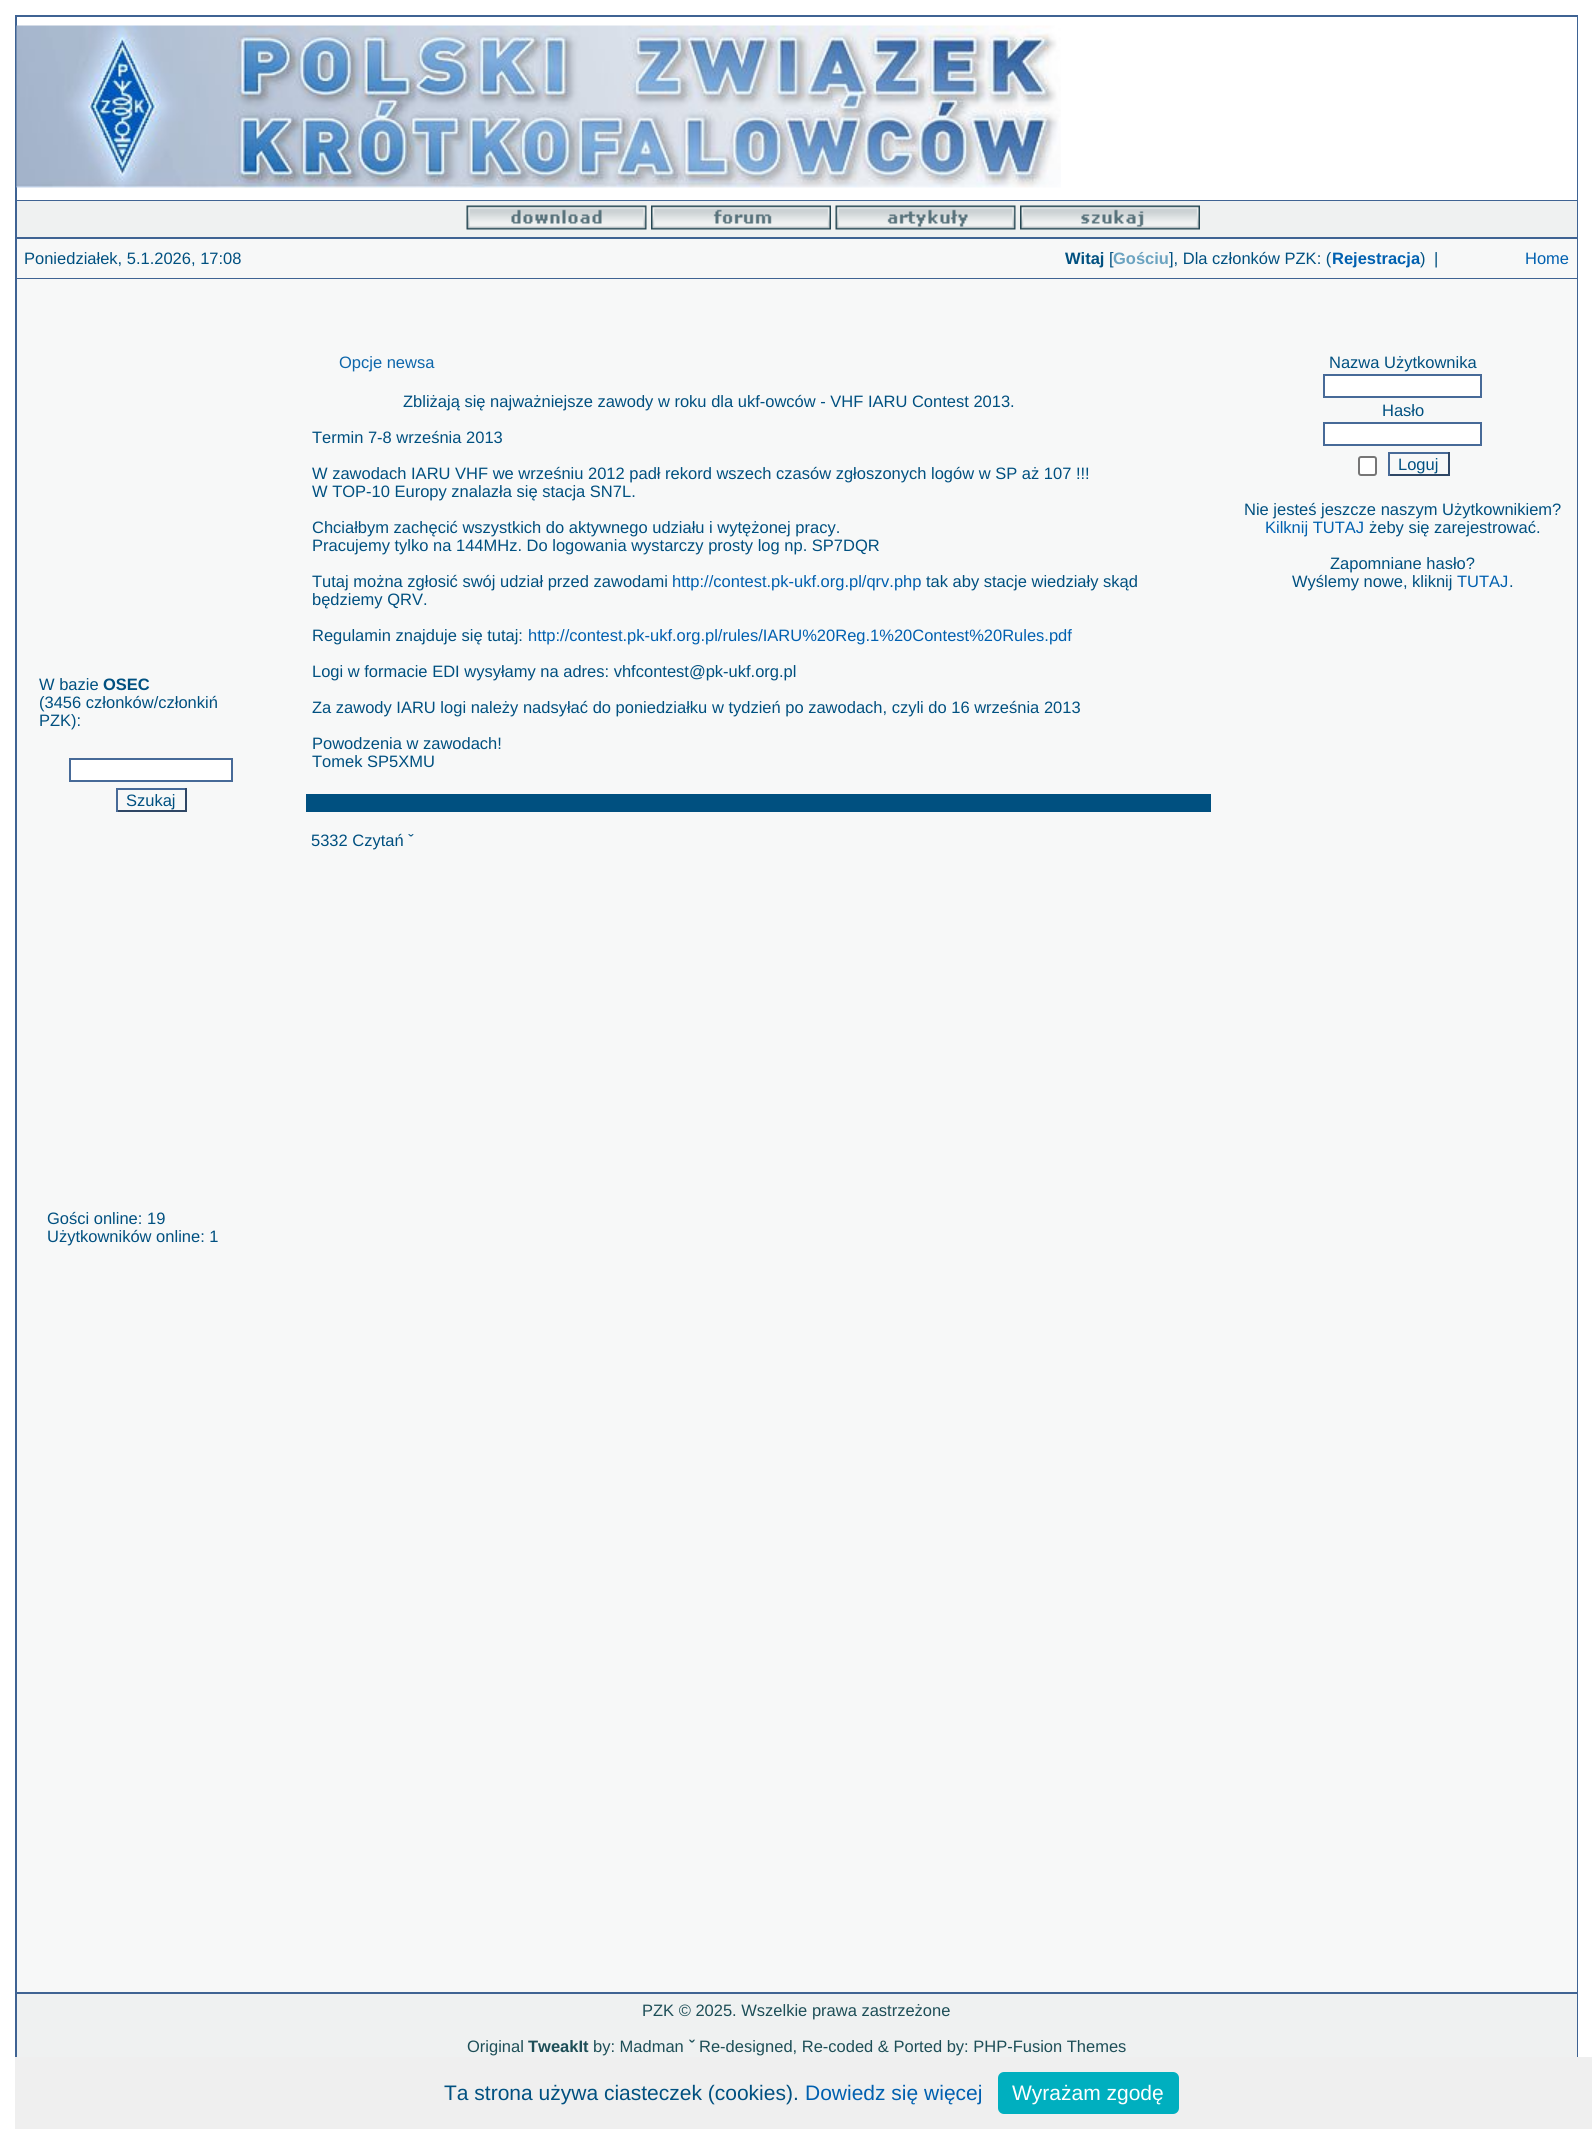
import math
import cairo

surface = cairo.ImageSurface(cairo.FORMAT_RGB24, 1592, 2129)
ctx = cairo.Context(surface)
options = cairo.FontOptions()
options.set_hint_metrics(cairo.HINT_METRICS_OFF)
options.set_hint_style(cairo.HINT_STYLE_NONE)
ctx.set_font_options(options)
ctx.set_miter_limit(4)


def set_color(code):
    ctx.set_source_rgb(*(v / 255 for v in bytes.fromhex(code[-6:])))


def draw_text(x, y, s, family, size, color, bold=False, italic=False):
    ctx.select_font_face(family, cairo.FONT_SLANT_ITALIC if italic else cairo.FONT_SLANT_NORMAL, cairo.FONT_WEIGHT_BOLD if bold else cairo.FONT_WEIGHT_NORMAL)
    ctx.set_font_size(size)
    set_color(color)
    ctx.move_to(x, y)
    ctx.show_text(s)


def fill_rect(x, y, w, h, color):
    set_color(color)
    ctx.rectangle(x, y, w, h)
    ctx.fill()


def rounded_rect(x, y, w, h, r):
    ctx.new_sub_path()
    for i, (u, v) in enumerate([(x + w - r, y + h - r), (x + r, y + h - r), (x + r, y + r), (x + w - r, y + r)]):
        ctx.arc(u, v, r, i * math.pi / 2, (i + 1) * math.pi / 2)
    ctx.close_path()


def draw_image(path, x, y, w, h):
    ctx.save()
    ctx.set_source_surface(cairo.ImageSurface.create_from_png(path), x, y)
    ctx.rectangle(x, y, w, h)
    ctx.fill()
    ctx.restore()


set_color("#ffffff")
ctx.paint()
fill_rect(15, 15, 1563, 2042, "#3f6393")
fill_rect(17, 17, 1560, 183, "#ffffff")
draw_image("assets/img1.png", 16, 25, 1045, 163)
fill_rect(17, 201, 1560, 36, "#eff1f1")
draw_image("assets/img2.png", 466, 205, 181, 25)
draw_image("assets/img3.png", 651, 205, 180, 25)
draw_image("assets/img4.png", 835, 205, 181, 25)
draw_image("assets/img5.png", 1020, 205, 180, 25)
fill_rect(17, 239, 1560, 39, "#f7f8f8")
draw_text(24, 264, "Poniedziałek, 5.1.2026, 17:08", "Liberation Sans", 16.5, "#005080")
draw_text(1065, 264, "Witaj", "Liberation Sans", 16.5, "#005080", bold=True)
draw_text(1109, 264, "[", "Liberation Sans", 16.5, "#005080")
draw_text(1113, 264, "Gościu", "Liberation Sans", 16.5, "#6ba3c0", bold=True)
draw_text(1169, 264, "], Dla członków PZK: (", "Liberation Sans", 16.5, "#005080")
draw_text(1332, 264, "Rejestracja", "Liberation Sans", 16.5, "#0060b0", bold=True)
draw_text(1420, 264, ")", "Liberation Sans", 16.5, "#005080")
draw_text(1434, 264, "|", "Liberation Sans", 16.5, "#005080")
draw_text(1525, 264, "Home", "Liberation Sans", 16.5, "#0060b0")
fill_rect(17, 279, 1560, 1713, "#f7f8f8")
draw_text(339, 368, "Opcje newsa", "Liberation Sans", 16.5, "#0c66ab")
draw_text(403, 407, "Zbliżają się najważniejsze zawody w roku dla ukf-owców - VHF IARU Contest 2013.", "Liberation Sans", 16.5, "#005080")
draw_text(312, 443, "Termin 7-8 września 2013", "Liberation Sans", 16.5, "#005080")
draw_text(312, 479, "W zawodach IARU VHF we wrześniu 2012 padł rekord wszech czasów zgłoszonych logów w SP aż 107 !!!", "Liberation Sans", 16.5, "#005080")
draw_text(312, 497, "W TOP-10 Europy znalazła się stacja SN7L.", "Liberation Sans", 16.5, "#005080")
draw_text(312, 533, "Chciałbym zachęcić wszystkich do aktywnego udziału i wytężonej pracy.", "Liberation Sans", 16.5, "#005080")
draw_text(312, 551, "Pracujemy tylko na 144MHz. Do logowania wystarczy prosty log np. SP7DQR", "Liberation Sans", 16.5, "#005080")
draw_text(312, 587, "Tutaj można zgłosić swój udział przed zawodami", "Liberation Sans", 16.5, "#005080")
draw_text(672, 587, "http://contest.pk-ukf.org.pl/qrv.php", "Liberation Sans", 16.5, "#0060b0")
draw_text(926, 587, "tak aby stacje wiedziały skąd", "Liberation Sans", 16.5, "#005080")
draw_text(312, 605, "będziemy QRV.", "Liberation Sans", 16.5, "#005080")
draw_text(312, 641, "Regulamin znajduje się tutaj:", "Liberation Sans", 16.5, "#005080")
draw_text(528, 641, "http://contest.pk-ukf.org.pl/rules/IARU%20Reg.1%20Contest%20Rules.pdf", "Liberation Sans", 16.5, "#0060b0")
draw_text(312, 677, "Logi w formacie EDI wysyłamy na adres: vhfcontest@pk-ukf.org.pl", "Liberation Sans", 16.5, "#005080")
draw_text(312, 713, "Za zawody IARU logi należy nadsyłać do poniedziałku w tydzień po zawodach, czyli do 16 września 2013", "Liberation Sans", 16.5, "#005080")
draw_text(312, 749, "Powodzenia w zawodach!", "Liberation Sans", 16.5, "#005080")
draw_text(312, 767, "Tomek SP5XMU", "Liberation Sans", 16.5, "#005080")
fill_rect(306, 794, 905, 18, "#005080")
draw_text(311, 846, "5332 Czytań ˇ", "Liberation Sans", 16.5, "#005080")
draw_text(1329, 368, "Nazwa Użytkownika", "Liberation Sans", 16.5, "#005080")
set_color("#ffffff")
ctx.rectangle(1324, 375, 157, 22)
ctx.fill_preserve()
set_color("#476a98")
ctx.stroke()
draw_text(1382, 416, "Hasło", "Liberation Sans", 16.5, "#005080")
set_color("#ffffff")
ctx.rectangle(1324, 423, 157, 22)
ctx.fill_preserve()
set_color("#476a98")
ctx.stroke()
set_color("#ffffff")
rounded_rect(1359, 457, 17, 18, 2)
ctx.fill_preserve()
set_color("#767676")
ctx.stroke()
fill_rect(1388, 452, 61, 2, "#476a98")
fill_rect(1448, 452, 2, 24, "#2f4765")
fill_rect(1388, 474, 61, 2, "#2f4765")
fill_rect(1388, 452, 2, 24, "#476a98")
draw_text(1398, 470, "Loguj", "Liberation Sans", 16.5, "#005080")
draw_text(1244, 515, "Nie jesteś jeszcze naszym Użytkownikiem?", "Liberation Sans", 16.5, "#005080")
draw_text(1265, 533, "Kilknij TUTAJ", "Liberation Sans", 16.5, "#0060b0")
draw_text(1369, 533, "żeby się zarejestrować.", "Liberation Sans", 16.5, "#005080")
draw_text(1330, 569, "Zapomniane hasło?", "Liberation Sans", 16.5, "#005080")
draw_text(1292, 587, "Wyślemy nowe, kliknij", "Liberation Sans", 16.5, "#005080")
draw_text(1457, 587, "TUTAJ", "Liberation Sans", 16.5, "#0060b0")
draw_text(1509, 587, ".", "Liberation Sans", 16.5, "#005080")
draw_text(39, 690, "W bazie", "Liberation Sans", 16.5, "#005080")
draw_text(103, 690, "OSEC", "Liberation Sans", 16.5, "#005080", bold=True)
draw_text(39, 708, "(3456 członków/członkiń", "Liberation Sans", 16.5, "#005080")
draw_text(39, 726, "PZK):", "Liberation Sans", 16.5, "#005080")
set_color("#ffffff")
ctx.rectangle(70, 759, 162, 22)
ctx.fill_preserve()
set_color("#476a98")
ctx.stroke()
fill_rect(116, 788, 70, 2, "#476a98")
fill_rect(185, 788, 2, 24, "#2f4765")
fill_rect(116, 810, 70, 2, "#2f4765")
fill_rect(116, 788, 2, 24, "#476a98")
draw_text(126, 806, "Szukaj", "Liberation Sans", 16.5, "#005080")
draw_text(47, 1224, "Gości online: 19", "Liberation Sans", 16.5, "#005080")
draw_text(47, 1242, "Użytkowników online: 1", "Liberation Sans", 16.5, "#005080")
fill_rect(17, 1994, 1560, 63, "#eff1f1")
draw_text(642, 2016, "PZK © 2025. Wszelkie prawa zastrzeżone", "Liberation Sans", 16.5, "#1d4e57")
draw_text(467, 2052, "Original", "Liberation Sans", 16.5, "#1d4e57")
draw_text(528, 2052, "TweakIt", "Liberation Sans", 16.5, "#1d4e57", bold=True)
draw_text(593, 2052, "by: Madman", "Liberation Sans", 16.5, "#1d4e57")
draw_text(689, 2052, "ˇ", "Liberation Sans", 16.5, "#1d4e57", bold=True)
draw_text(699, 2052, "Re-designed, Re-coded & Ported by: PHP-Fusion Themes", "Liberation Sans", 16.5, "#1d4e57")
fill_rect(15, 2057, 1577, 72, "#efefef")
draw_text(444, 2100, "Ta strona używa ciasteczek (cookies).", "Liberation Sans", 21, "#005080")
draw_text(805, 2100, "Dowiedz się więcej", "Liberation Sans", 21, "#0060b0")
set_color("#00afbf")
rounded_rect(998, 2072, 181, 42, 6)
ctx.fill()
draw_text(1012, 2100, "Wyrażam zgodę", "Liberation Sans", 21, "#ffffff")
surface.write_to_png("output.png")
